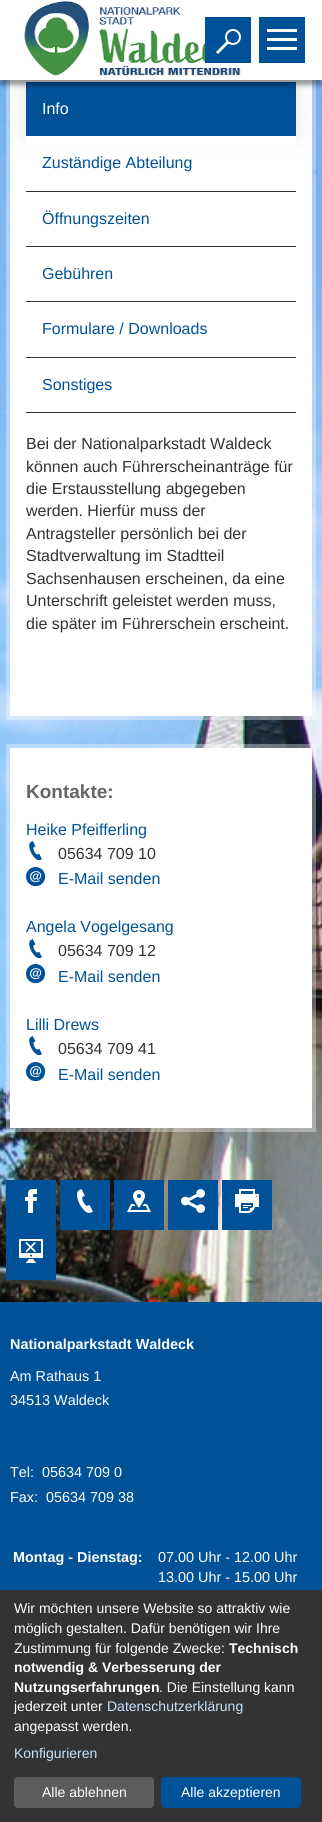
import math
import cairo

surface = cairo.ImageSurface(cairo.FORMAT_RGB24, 322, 1822)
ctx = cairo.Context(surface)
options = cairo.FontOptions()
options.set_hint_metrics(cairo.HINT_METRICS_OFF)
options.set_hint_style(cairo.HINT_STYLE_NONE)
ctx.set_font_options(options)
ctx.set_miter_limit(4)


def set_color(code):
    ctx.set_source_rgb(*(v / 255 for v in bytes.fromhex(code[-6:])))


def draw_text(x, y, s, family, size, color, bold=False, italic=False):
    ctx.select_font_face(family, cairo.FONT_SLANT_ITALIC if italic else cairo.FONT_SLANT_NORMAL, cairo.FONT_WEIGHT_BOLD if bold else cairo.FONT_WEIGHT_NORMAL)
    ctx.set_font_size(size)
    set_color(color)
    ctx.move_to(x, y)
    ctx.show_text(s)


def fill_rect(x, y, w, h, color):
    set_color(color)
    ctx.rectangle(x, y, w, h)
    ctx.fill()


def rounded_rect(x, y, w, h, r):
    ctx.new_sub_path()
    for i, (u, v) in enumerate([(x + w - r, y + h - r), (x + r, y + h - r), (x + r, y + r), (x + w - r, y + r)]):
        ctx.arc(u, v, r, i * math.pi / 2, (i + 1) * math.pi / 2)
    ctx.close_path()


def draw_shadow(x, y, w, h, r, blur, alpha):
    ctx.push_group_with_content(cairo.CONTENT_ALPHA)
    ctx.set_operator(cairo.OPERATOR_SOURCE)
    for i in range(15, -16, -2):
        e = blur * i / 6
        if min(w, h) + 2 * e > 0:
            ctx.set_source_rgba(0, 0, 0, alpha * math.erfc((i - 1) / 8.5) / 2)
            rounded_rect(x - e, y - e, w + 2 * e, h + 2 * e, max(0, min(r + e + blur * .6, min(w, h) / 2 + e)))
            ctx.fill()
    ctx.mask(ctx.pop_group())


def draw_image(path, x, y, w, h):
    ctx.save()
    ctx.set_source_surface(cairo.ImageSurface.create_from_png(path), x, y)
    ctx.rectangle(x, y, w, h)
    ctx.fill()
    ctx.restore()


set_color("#ffffff")
ctx.paint()
draw_image("assets/img1.png", 0, 80, 322, 1222)
ctx.rectangle(8, -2, 306, 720)
ctx.set_source_rgba(1, 1, 1, 0.35)
ctx.set_line_width(4)
ctx.stroke()
fill_rect(10, 80, 302, 636, "#ffffff")
set_color("#000000")
draw_shadow(26, 82, 270, 54, 0, 10, 0.1)
fill_rect(26, 82, 270, 54, "#005298")
set_color("#000000")
draw_shadow(0, 5, 322, 80, 0, 2.5, 0.4)
fill_rect(0, 0, 322, 80, "#ffffff")
draw_image("assets/img2.png", 24, 1, 217, 75)
fill_rect(205, 17, 46, 46, "#005298")
set_color("#ffffff")
ctx.new_path()
ctx.move_to(216, 52)
ctx.line_to(237, 31)
ctx.line_to(239, 33)
ctx.line_to(218, 54)
ctx.close_path()
ctx.fill()
set_color("#005298")
ctx.arc(233, 37, 7, 0, 2 * math.pi)
ctx.fill_preserve()
set_color("#ffffff")
ctx.set_line_width(2)
ctx.stroke()
fill_rect(259, 17, 46, 46, "#005298")
fill_rect(267, 38, 30, 3, "#ffffff")
fill_rect(267, 29, 30, 3, "#ffffff")
fill_rect(267, 47, 30, 3, "#ffffff")
draw_text(42, 114, "Info", "Liberation Sans", 16, "#ffffff")
fill_rect(26, 136, 270, 13, "#ffffff")
fill_rect(26, 191, 270, 1, "#333333")
draw_text(42, 168, "Zuständige Abteilung", "Liberation Sans", 16, "#005298")
fill_rect(26, 246, 270, 1, "#333333")
draw_text(42, 224, "Öffnungszeiten", "Liberation Sans", 16, "#005298")
fill_rect(26, 301, 270, 1, "#333333")
draw_text(42, 279, "Gebühren", "Liberation Sans", 16, "#005298")
fill_rect(26, 357, 270, 1, "#333333")
draw_text(42, 334, "Formulare / Downloads", "Liberation Sans", 16, "#005298")
fill_rect(26, 412, 270, 1, "#333333")
draw_text(42, 390, "Sonstiges", "Liberation Sans", 16, "#005298")
draw_text(26, 449, "Bei der Nationalparkstadt Waldeck", "Liberation Sans", 16, "#333333")
draw_text(26, 472, "können auch Führerscheinanträge für", "Liberation Sans", 16, "#333333")
draw_text(26, 494, "die Erstausstellung abgegeben", "Liberation Sans", 16, "#333333")
draw_text(26, 516, "werden. Hierfür muss der", "Liberation Sans", 16, "#333333")
draw_text(26, 539, "Antragsteller persönlich bei der", "Liberation Sans", 16, "#333333")
draw_text(26, 561, "Stadtverwaltung im Stadtteil", "Liberation Sans", 16, "#333333")
draw_text(26, 584, "Sachsenhausen erscheinen, da eine", "Liberation Sans", 16, "#333333")
draw_text(26, 606, "Unterschrift geleistet werden muss,", "Liberation Sans", 16, "#333333")
draw_text(26, 629, "die später im Führerschein erscheint.", "Liberation Sans", 16, "#333333")
ctx.rectangle(8, 746, 306, 384)
ctx.set_source_rgba(1, 1, 1, 0.35)
ctx.set_line_width(4)
ctx.stroke()
fill_rect(10, 748, 302, 380, "#ffffff")
draw_text(26, 798, "Kontakte:", "Liberation Sans", 19, "#666666", bold=True)
draw_text(26, 835, "Heike Pfeifferling", "Liberation Sans", 16, "#005298")
draw_image("assets/img3.png", 29, 841, 13, 19)
draw_text(58, 859, "05634 709 10", "Liberation Sans", 16, "#333333")
draw_image("assets/img4.png", 26, 867, 20, 19)
draw_text(58, 884, "E-Mail senden", "Liberation Sans", 16, "#005298")
draw_text(26, 932, "Angela Vogelgesang", "Liberation Sans", 16, "#005298")
draw_image("assets/img3.png", 29, 939, 13, 19)
draw_text(58, 956, "05634 709 12", "Liberation Sans", 16, "#333333")
draw_image("assets/img5.png", 26, 964, 20, 20)
draw_text(58, 982, "E-Mail senden", "Liberation Sans", 16, "#005298")
draw_text(26, 1030, "Lilli Drews", "Liberation Sans", 16, "#005298")
draw_image("assets/img6.png", 29, 1036, 13, 20)
draw_text(58, 1054, "05634 709 41", "Liberation Sans", 16, "#333333")
draw_image("assets/img4.png", 26, 1062, 20, 19)
draw_text(58, 1080, "E-Mail senden", "Liberation Sans", 16, "#005298")
fill_rect(6, 1180, 50, 100, "#005298")
draw_image("assets/img7.png", 25, 1189, 12, 24)
fill_rect(60, 1180, 50, 50, "#005298")
draw_image("assets/img8.png", 77, 1189, 16, 24)
fill_rect(114, 1180, 50, 50, "#005298")
draw_image("assets/img9.png", 127, 1190, 24, 22)
fill_rect(168, 1180, 50, 50, "#005298")
draw_image("assets/img10.png", 181, 1189, 24, 24)
fill_rect(222, 1180, 50, 50, "#005298")
draw_image("assets/img11.png", 235, 1189, 24, 24)
draw_image("assets/img12.png", 19, 1239, 24, 24)
fill_rect(0, 1302, 322, 288, "#005298")
draw_text(10, 1349, "Nationalparkstadt Waldeck", "Liberation Sans", 14.4, "#ffffff", bold=True)
draw_text(10, 1381, "Am Rathaus 1", "Liberation Sans", 14.4, "#ffffff")
draw_text(10, 1405, "34513 Waldeck", "Liberation Sans", 14.4, "#ffffff")
draw_text(10, 1477, "Tel:", "Liberation Sans", 14.4, "#ffffff")
draw_text(42, 1477, "05634 709 0", "Liberation Sans", 14.4, "#ffffff")
draw_text(10, 1502, "Fax:", "Liberation Sans", 14.4, "#ffffff")
draw_text(46, 1502, "05634 709 38", "Liberation Sans", 14.4, "#ffffff")
draw_text(13, 1562, "Montag - Dienstag:", "Liberation Sans", 14.4, "#ffffff", bold=True)
draw_text(158, 1562, "07.00 Uhr - 12.00 Uhr", "Liberation Sans", 14.4, "#ffffff")
draw_text(158, 1582, "13.00 Uhr - 15.00 Uhr", "Liberation Sans", 14.4, "#ffffff")
fill_rect(0, 1590, 322, 232, "#333333")
draw_text(14, 1613, "Wir möchten unsere Website so attraktiv wie", "Liberation Sans", 14, "#ffffff")
draw_text(14, 1633, "möglich gestalten. Dafür benötigen wir Ihre", "Liberation Sans", 14, "#ffffff")
draw_text(14, 1653, "Zustimmung für folgende Zwecke:", "Liberation Sans", 14, "#ffffff")
draw_text(229, 1653, "Technisch", "Liberation Sans", 14, "#ffffff", bold=True)
draw_text(14, 1672, "notwendig & Verbesserung der", "Liberation Sans", 14, "#ffffff", bold=True)
draw_text(14, 1692, "Nutzungserfahrungen", "Liberation Sans", 14, "#ffffff", bold=True)
draw_text(159, 1692, ". Die Einstellung kann", "Liberation Sans", 14, "#ffffff")
draw_text(14, 1711, "jederzeit unter", "Liberation Sans", 14, "#ffffff")
draw_text(107, 1711, "Datenschutzerklärung", "Liberation Sans", 14, "#c3e3fe")
draw_text(14, 1731, "angepasst werden.", "Liberation Sans", 14, "#ffffff")
draw_text(14, 1758, "Konfigurieren", "Liberation Sans", 14, "#c3e3fe")
set_color("#5c5c5c")
rounded_rect(14, 1777, 140, 31, 4)
ctx.fill()
draw_text(42, 1797, "Alle ablehnen", "Liberation Sans", 14, "#ffffff")
set_color("#005298")
rounded_rect(161, 1777, 140, 31, 4)
ctx.fill()
draw_text(181, 1797, "Alle akzeptieren", "Liberation Sans", 14, "#ffffff")
surface.write_to_png("output.png")
